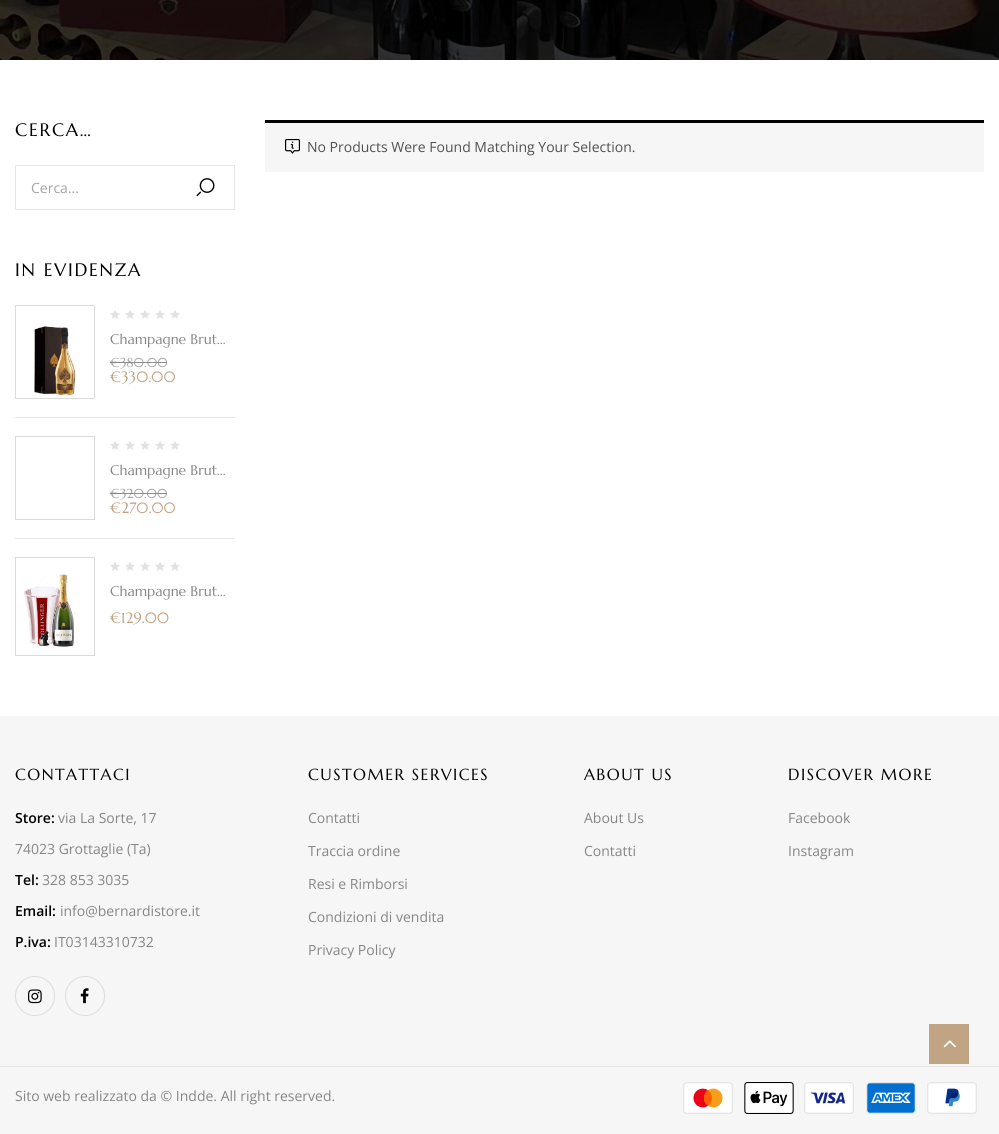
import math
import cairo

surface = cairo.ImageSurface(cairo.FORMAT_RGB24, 999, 1134)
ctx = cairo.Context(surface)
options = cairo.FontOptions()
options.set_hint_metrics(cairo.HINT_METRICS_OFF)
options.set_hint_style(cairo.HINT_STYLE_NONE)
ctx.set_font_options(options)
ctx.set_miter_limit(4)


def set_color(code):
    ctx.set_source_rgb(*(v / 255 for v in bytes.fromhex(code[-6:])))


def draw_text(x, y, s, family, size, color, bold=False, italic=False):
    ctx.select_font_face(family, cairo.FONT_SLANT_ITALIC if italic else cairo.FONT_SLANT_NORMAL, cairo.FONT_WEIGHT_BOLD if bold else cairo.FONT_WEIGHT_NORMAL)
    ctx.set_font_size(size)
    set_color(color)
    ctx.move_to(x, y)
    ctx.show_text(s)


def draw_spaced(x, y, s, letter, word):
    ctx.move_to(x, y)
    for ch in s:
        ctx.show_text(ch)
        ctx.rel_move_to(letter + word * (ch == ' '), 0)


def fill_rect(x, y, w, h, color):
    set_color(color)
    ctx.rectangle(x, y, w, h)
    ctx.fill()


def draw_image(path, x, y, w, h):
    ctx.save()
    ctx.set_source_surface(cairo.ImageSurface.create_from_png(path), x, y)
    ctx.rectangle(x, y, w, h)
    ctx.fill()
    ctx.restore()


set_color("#ffffff")
ctx.paint()
draw_image("assets/img1.png", 0, 0, 999, 60)
ctx.select_font_face("Marcellus")
ctx.set_font_size(18)
set_color("#000000")
draw_spaced(15, 136, "CERCA…", 1.75, 0)
ctx.rectangle(15.5, 165.5, 219, 44)
set_color("#e6e6e6")
ctx.set_line_width(1)
ctx.stroke()
draw_text(31, 193, "Cerca...", "Open Sans", 14, "#a3a3a3")
draw_image("assets/img2.png", 196, 178, 19, 19)
ctx.select_font_face("Marcellus")
ctx.set_font_size(18)
set_color("#000000")
draw_spaced(15, 276, "IN EVIDENZA", 1.75, 0)
fill_rect(15, 417, 220, 1, "#e6e6e6")
ctx.rectangle(15.5, 305.5, 79, 93)
set_color("#dadada")
ctx.stroke()
draw_image("assets/img3.png", 34, 326, 42, 70)
draw_image("assets/img4.png", 110, 310, 70, 9)
draw_text(110, 344, "Champagne Brut…", "Marcellus", 14, "#868686")
draw_text(110, 367, "€", "Marcellus", 13, "#a3a3a3")
ctx.set_source_rgba(0.529, 0.529, 0.529, 0.8)
ctx.rectangle(110, 362, 10, 1)
ctx.fill()
ctx.rectangle(110, 362, 10, 1)
ctx.fill()
ctx.rectangle(110, 362, 10, 1)
ctx.fill()
draw_text(120, 367, "380.00", "Marcellus", 13, "#a3a3a3")
ctx.set_source_rgba(0.529, 0.529, 0.529, 0.8)
ctx.rectangle(120, 362, 47, 1)
ctx.fill()
ctx.rectangle(120, 362, 47, 1)
ctx.fill()
draw_text(110, 382, "€330.00", "Marcellus", 15, "#c0a483")
fill_rect(15, 538, 220, 1, "#e6e6e6")
ctx.rectangle(15.5, 436.5, 79, 83)
set_color("#dadada")
ctx.stroke()
draw_image("assets/img4.png", 110, 441, 70, 9)
draw_text(110, 475, "Champagne Brut…", "Marcellus", 14, "#868686")
draw_text(110, 498, "€", "Marcellus", 13, "#a3a3a3")
ctx.set_source_rgba(0.529, 0.529, 0.529, 0.8)
ctx.rectangle(110, 493, 10, 1)
ctx.fill()
ctx.rectangle(110, 493, 10, 1)
ctx.fill()
ctx.rectangle(110, 493, 10, 1)
ctx.fill()
draw_text(120, 498, "320.00", "Marcellus", 13, "#a3a3a3")
ctx.set_source_rgba(0.529, 0.529, 0.529, 0.8)
ctx.rectangle(120, 493, 47, 1)
ctx.fill()
ctx.rectangle(120, 493, 47, 1)
ctx.fill()
draw_text(110, 513, "€270.00", "Marcellus", 15, "#c0a483")
ctx.rectangle(15.5, 557.5, 79, 98)
set_color("#dadada")
ctx.stroke()
draw_image("assets/img5.png", 24, 574, 51, 73)
draw_image("assets/img4.png", 110, 562, 70, 9)
draw_text(110, 596, "Champagne Brut…", "Marcellus", 14, "#868686")
draw_text(110, 623, "€129.00", "Marcellus", 15, "#c0a483")
fill_rect(265, 123, 719, 49, "#f7f6f7")
fill_rect(265, 120, 719, 3, "#000000")
draw_image("assets/img6.png", 285, 139, 15, 15)
draw_text(307, 152, "No Products Were Found Matching Your Selection.", "Open Sans", 14, "#515151")
fill_rect(0, 716, 999, 418, "#f6f6f6")
ctx.select_font_face("Marcellus")
ctx.set_font_size(16)
set_color("#000000")
draw_spaced(15, 780, "CONTATTACI", 1.5, 0)
draw_text(15, 823, "Store:", "Open Sans SemiBold", 14, "#000000")
draw_text(58, 823, "via La Sorte, 17", "Open Sans", 14, "#868686")
draw_text(15, 854, "74023 Grottaglie (Ta)", "Open Sans", 14, "#868686")
draw_text(15, 885, "Tel:", "Open Sans SemiBold", 14, "#000000")
draw_text(42, 885, "328 853 3035", "Open Sans", 14, "#868686")
draw_text(15, 916, "Email:", "Open Sans SemiBold", 14, "#000000")
draw_text(60, 916, "info@bernardistore.it", "Open Sans", 14, "#868686")
draw_text(15, 947, "P.iva:", "Open Sans SemiBold", 14, "#000000")
draw_text(54, 947, "IT03143310732", "Open Sans", 14, "#868686")
ctx.new_path()
ctx.arc(35, 996, 19.5, 0, 2 * math.pi)
set_color("#dddddd")
ctx.stroke()
draw_image("assets/img7.png", 28, 989, 14, 15)
ctx.arc(85, 996, 19.5, 0, 2 * math.pi)
ctx.stroke()
draw_image("assets/img8.png", 80, 988, 9, 16)
ctx.select_font_face("Marcellus")
ctx.set_font_size(16)
set_color("#000000")
draw_spaced(308, 780, "CUSTOMER SERVICES", 1.5, 0)
draw_text(308, 823, "Contatti", "Open Sans", 14, "#868686")
draw_text(308, 856, "Traccia ordine", "Open Sans", 14, "#868686")
draw_text(308, 889, "Resi e Rimborsi", "Open Sans", 14, "#868686")
draw_text(308, 922, "Condizioni di vendita", "Open Sans", 14, "#868686")
draw_text(308, 955, "Privacy Policy", "Open Sans", 14, "#868686")
ctx.select_font_face("Marcellus")
ctx.set_font_size(16)
set_color("#000000")
draw_spaced(584, 780, "ABOUT US", 1.5, 0)
draw_text(584, 823, "About Us", "Open Sans", 14, "#868686")
draw_text(584, 856, "Contatti", "Open Sans", 14, "#868686")
ctx.select_font_face("Marcellus")
ctx.set_font_size(16)
set_color("#000000")
draw_spaced(788, 780, "DISCOVER MORE", 1.5, 0)
draw_text(788, 823, "Facebook", "Open Sans", 14, "#868686")
draw_text(788, 856, "Instagram", "Open Sans", 14, "#868686")
fill_rect(0, 1066, 999, 1, "#e2e2e2")
draw_text(15, 1101, "Sito web realizzato da © Indde. All right reserved.", "Open Sans", 14, "#868686")
draw_image("assets/img9.png", 683, 1082, 294, 32)
fill_rect(929, 1024, 40, 40, "#c0a483")
draw_image("assets/img10.png", 943, 1040, 13, 8)
surface.write_to_png("output.png")
